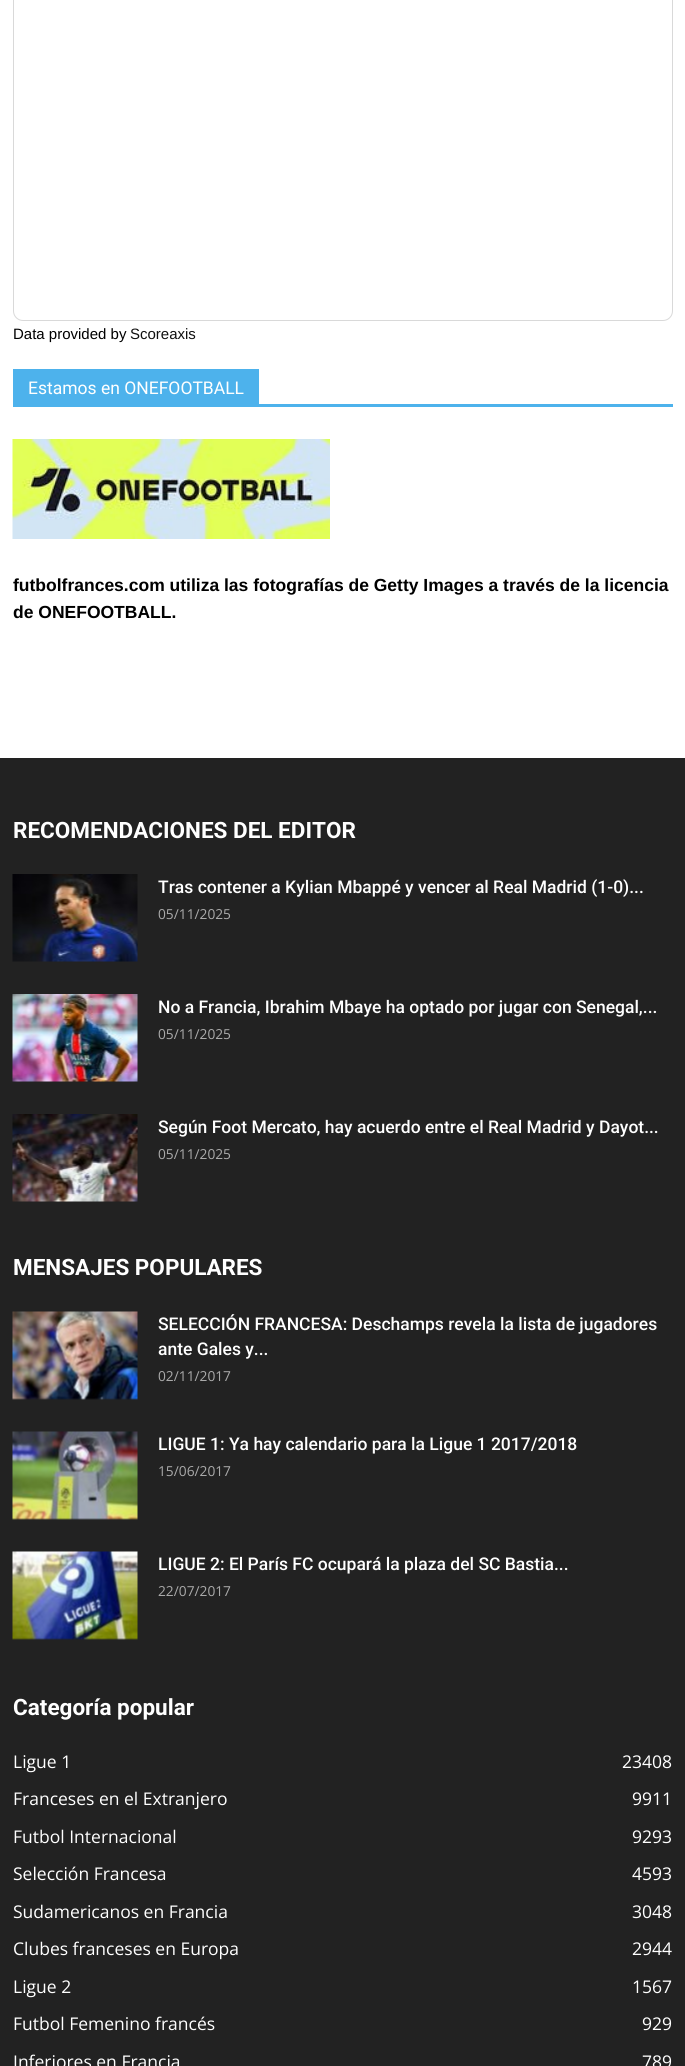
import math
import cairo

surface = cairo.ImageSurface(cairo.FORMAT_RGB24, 685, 2066)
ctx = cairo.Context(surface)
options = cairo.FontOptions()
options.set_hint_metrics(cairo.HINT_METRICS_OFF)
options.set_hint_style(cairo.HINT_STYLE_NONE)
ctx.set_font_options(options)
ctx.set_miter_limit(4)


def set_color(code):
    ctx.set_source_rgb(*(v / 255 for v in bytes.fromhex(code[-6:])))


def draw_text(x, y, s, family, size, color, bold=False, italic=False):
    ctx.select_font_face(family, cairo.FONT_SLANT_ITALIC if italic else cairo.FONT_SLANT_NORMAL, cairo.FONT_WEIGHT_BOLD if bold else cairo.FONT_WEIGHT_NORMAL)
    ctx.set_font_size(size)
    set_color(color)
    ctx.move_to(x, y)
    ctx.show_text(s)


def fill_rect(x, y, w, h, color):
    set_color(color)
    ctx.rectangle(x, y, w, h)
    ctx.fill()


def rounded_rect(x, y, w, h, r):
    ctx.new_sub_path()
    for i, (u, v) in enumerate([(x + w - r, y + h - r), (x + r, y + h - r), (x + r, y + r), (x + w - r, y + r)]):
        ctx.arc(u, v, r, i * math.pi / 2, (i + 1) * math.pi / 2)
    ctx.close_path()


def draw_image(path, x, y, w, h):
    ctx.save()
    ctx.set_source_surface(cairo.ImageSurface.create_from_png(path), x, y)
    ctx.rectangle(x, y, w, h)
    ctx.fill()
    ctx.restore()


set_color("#ffffff")
ctx.paint()
rounded_rect(13.5, -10.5, 659, 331, 9.5)
set_color("#d9d9d9")
ctx.set_line_width(1)
ctx.stroke()
draw_text(13, 339, "Data provided by", "Liberation Sans", 15, "#000000")
draw_text(130, 339, "Scoreaxis", "Liberation Sans", 15, "#111111")
fill_rect(13, 404, 660, 3, "#4db2ec")
fill_rect(13, 369, 246, 35, "#4db2ec")
draw_text(28, 394, "Estamos en ONEFOOTBALL", "Roboto", 17.5, "#ffffff")
draw_image("assets/img1.png", 12, 439, 318, 100)
draw_text(13, 591, "futbolfrances.com utiliza las fotografías de Getty Images a través de la licencia", "Liberation Sans", 17.5, "#000000", bold=True)
draw_text(13, 618, "de ONEFOOTBALL.", "Liberation Sans", 17.5, "#000000", bold=True)
fill_rect(0, 758, 685, 1308, "#222222")
draw_text(13, 838, "RECOMENDACIONES DEL EDITOR", "Roboto", 22.5, "#ffffff", bold=True)
draw_image("assets/img2.png", 12, 874, 126, 88)
draw_text(158, 893, "Tras contener a Kylian Mbappé y vencer al Real Madrid (1-0)...", "Roboto Medium", 17.5, "#ffffff")
draw_text(158, 919, "05/11/2025", "Open Sans", 13.75, "#aaaaaa")
draw_image("assets/img3.png", 12, 994, 126, 88)
draw_text(158, 1013, "No a Francia, Ibrahim Mbaye ha optado por jugar con Senegal,...", "Roboto Medium", 17.5, "#ffffff")
draw_text(158, 1039, "05/11/2025", "Open Sans", 13.75, "#aaaaaa")
draw_image("assets/img4.png", 12, 1114, 126, 88)
draw_text(158, 1133, "Según Foot Mercato, hay acuerdo entre el Real Madrid y Dayot...", "Roboto Medium", 17.5, "#ffffff")
draw_text(158, 1159, "05/11/2025", "Open Sans", 13.75, "#aaaaaa")
draw_text(13, 1275, "MENSAJES POPULARES", "Roboto", 22.5, "#ffffff", bold=True)
draw_image("assets/img5.png", 12, 1311, 126, 89)
draw_text(158, 1330, "SELECCIÓN FRANCESA: Deschamps revela la lista de jugadores", "Roboto Medium", 17.5, "#ffffff")
draw_text(158, 1355, "ante Gales y...", "Roboto Medium", 17.5, "#ffffff")
draw_text(158, 1381, "02/11/2017", "Open Sans", 13.75, "#aaaaaa")
draw_image("assets/img6.png", 12, 1431, 126, 89)
draw_text(158, 1450, "LIGUE 1: Ya hay calendario para la Ligue 1 2017/2018", "Roboto Medium", 17.5, "#ffffff")
draw_text(158, 1476, "15/06/2017", "Open Sans", 13.75, "#aaaaaa")
draw_image("assets/img7.png", 12, 1551, 126, 89)
draw_text(158, 1570, "LIGUE 2: El París FC ocupará la plaza del SC Bastia...", "Roboto Medium", 17.5, "#ffffff")
draw_text(158, 1596, "22/07/2017", "Open Sans", 13.75, "#aaaaaa")
draw_text(13, 1715, "Categoría popular", "Roboto", 22.5, "#ffffff", bold=True)
draw_text(13, 1768, "Ligue 1", "Open Sans", 17.5, "#ffffff")
draw_text(622, 1768, "23408", "Open Sans", 17.5, "#ffffff")
draw_text(13, 1805, "Franceses en el Extranjero", "Open Sans", 17.5, "#ffffff")
draw_text(632, 1805, "9911", "Open Sans", 17.5, "#ffffff")
draw_text(13, 1843, "Futbol Internacional", "Open Sans", 17.5, "#ffffff")
draw_text(632, 1843, "9293", "Open Sans", 17.5, "#ffffff")
draw_text(13, 1880, "Selección Francesa", "Open Sans", 17.5, "#ffffff")
draw_text(632, 1880, "4593", "Open Sans", 17.5, "#ffffff")
draw_text(13, 1918, "Sudamericanos en Francia", "Open Sans", 17.5, "#ffffff")
draw_text(632, 1918, "3048", "Open Sans", 17.5, "#ffffff")
draw_text(13, 1955, "Clubes franceses en Europa", "Open Sans", 17.5, "#ffffff")
draw_text(632, 1955, "2944", "Open Sans", 17.5, "#ffffff")
draw_text(13, 1993, "Ligue 2", "Open Sans", 17.5, "#ffffff")
draw_text(632, 1993, "1567", "Open Sans", 17.5, "#ffffff")
draw_text(13, 2030, "Futbol Femenino francés", "Open Sans", 17.5, "#ffffff")
draw_text(642, 2030, "929", "Open Sans", 17.5, "#ffffff")
draw_text(13, 2068, "Inferiores en Francia", "Open Sans", 17.5, "#ffffff")
draw_text(642, 2068, "789", "Open Sans", 17.5, "#ffffff")
surface.write_to_png("output.png")
